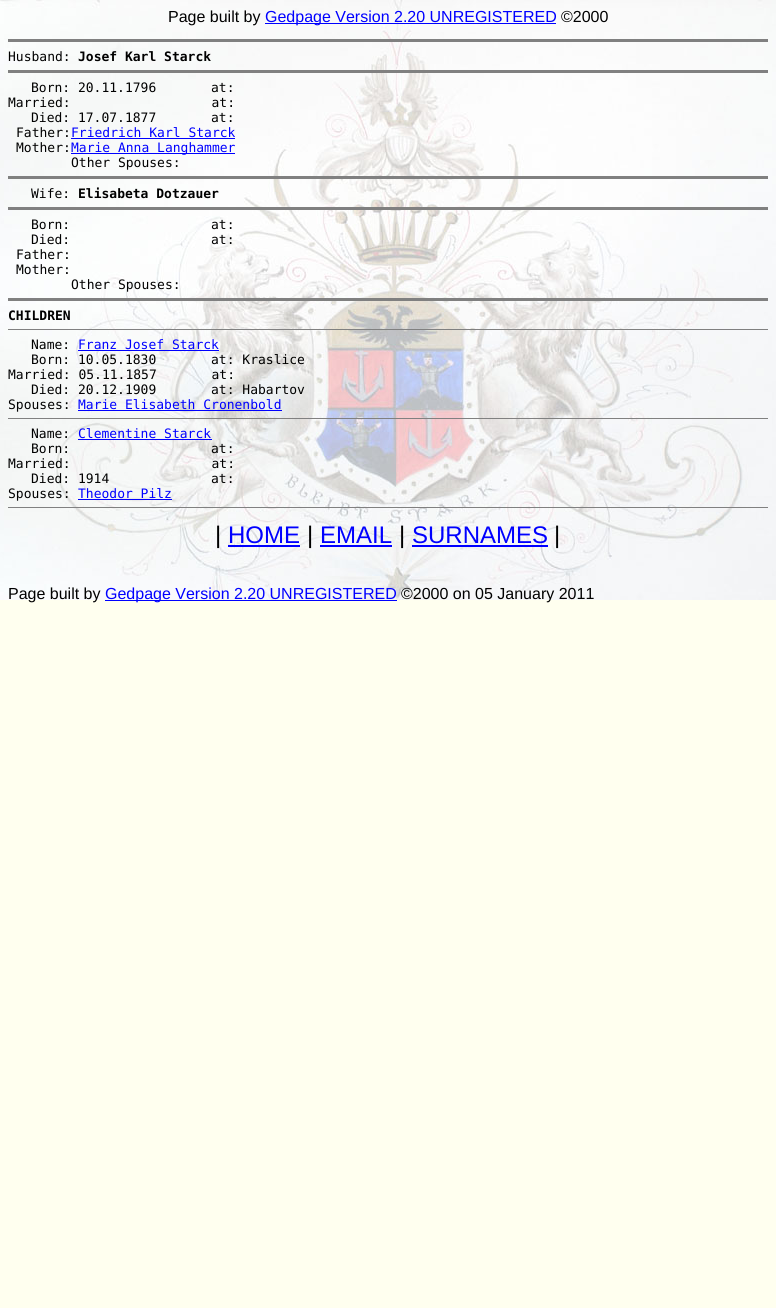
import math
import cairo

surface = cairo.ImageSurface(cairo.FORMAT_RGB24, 776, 1308)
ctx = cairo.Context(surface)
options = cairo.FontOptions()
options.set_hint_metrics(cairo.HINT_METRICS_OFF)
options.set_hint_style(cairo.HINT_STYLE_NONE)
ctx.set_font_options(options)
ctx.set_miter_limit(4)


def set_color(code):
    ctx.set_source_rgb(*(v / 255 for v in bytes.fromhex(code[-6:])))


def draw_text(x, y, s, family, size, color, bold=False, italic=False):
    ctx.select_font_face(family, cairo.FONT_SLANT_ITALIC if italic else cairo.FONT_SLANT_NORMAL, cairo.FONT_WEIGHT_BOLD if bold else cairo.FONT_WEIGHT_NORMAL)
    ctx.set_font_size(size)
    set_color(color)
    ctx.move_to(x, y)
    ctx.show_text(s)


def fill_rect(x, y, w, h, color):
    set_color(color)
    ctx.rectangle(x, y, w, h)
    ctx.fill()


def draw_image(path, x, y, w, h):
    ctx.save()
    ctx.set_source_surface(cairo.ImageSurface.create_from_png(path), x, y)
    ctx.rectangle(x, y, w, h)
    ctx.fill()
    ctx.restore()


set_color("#ffffef")
ctx.paint()
draw_image("assets/img1.png", 0, 0, 776, 600)
draw_text(168, 22, "Page built by", "Liberation Sans", 16, "#000000")
fill_rect(265, 23, 291, 1, "#0000ff")
draw_text(265, 22, "Gedpage Version 2.20 UNREGISTERED", "Liberation Sans", 16, "#0000ff")
draw_text(561, 22, "©2000", "Liberation Sans", 16, "#000000")
fill_rect(8, 39, 760, 3, "#808080")
draw_text(8, 61, "Husband:", "DejaVu Sans Mono", 13, "#000000")
draw_text(78, 61, "Josef Karl Starck", "DejaVu Sans Mono", 13, "#000000", bold=True)
fill_rect(8, 70, 760, 3, "#808080")
draw_text(31, 92, "Born: 20.11.1796       at:", "DejaVu Sans Mono", 13, "#000000")
draw_text(8, 107, "Married:                  at:", "DejaVu Sans Mono", 13, "#000000")
draw_text(31, 122, "Died: 17.07.1877       at:", "DejaVu Sans Mono", 13, "#000000")
draw_text(16, 137, "Father:", "DejaVu Sans Mono", 13, "#000000")
draw_text(71, 137, "Friedrich Karl Starck", "DejaVu Sans Mono", 13, "#0000ff")
fill_rect(71, 138, 164, 1, "#0000ff")
draw_text(16, 152, "Mother:", "DejaVu Sans Mono", 13, "#000000")
fill_rect(71, 153, 164, 1, "#0000ff")
draw_text(71, 152, "Marie Anna Langhammer", "DejaVu Sans Mono", 13, "#0000ff")
draw_text(71, 167, "Other Spouses:", "DejaVu Sans Mono", 13, "#000000")
fill_rect(8, 176, 760, 3, "#808080")
draw_text(31, 198, "Wife:", "DejaVu Sans Mono", 13, "#000000")
draw_text(78, 198, "Elisabeta Dotzauer", "DejaVu Sans Mono", 13, "#000000", bold=True)
fill_rect(8, 207, 760, 3, "#808080")
draw_text(31, 229, "Born:                  at:", "DejaVu Sans Mono", 13, "#000000")
draw_text(31, 244, "Died:                  at:", "DejaVu Sans Mono", 13, "#000000")
draw_text(16, 259, "Father:", "DejaVu Sans Mono", 13, "#000000")
draw_text(16, 274, "Mother:", "DejaVu Sans Mono", 13, "#000000")
draw_text(71, 289, "Other Spouses:", "DejaVu Sans Mono", 13, "#000000")
fill_rect(8, 298, 760, 3, "#808080")
draw_text(8, 320, "CHILDREN", "DejaVu Sans Mono", 13, "#000000", bold=True)
fill_rect(8, 329, 760, 1, "#808080")
draw_text(31, 349, "Name:", "DejaVu Sans Mono", 13, "#000000")
draw_text(78, 349, "Franz Josef Starck", "DejaVu Sans Mono", 13, "#0000ff")
fill_rect(78, 350, 141, 1, "#0000ff")
draw_text(31, 364, "Born: 10.05.1830       at: Kraslice", "DejaVu Sans Mono", 13, "#000000")
draw_text(8, 379, "Married: 05.11.1857       at:", "DejaVu Sans Mono", 13, "#000000")
draw_text(31, 394, "Died: 20.12.1909       at: Habartov", "DejaVu Sans Mono", 13, "#000000")
draw_text(8, 409, "Spouses:", "DejaVu Sans Mono", 13, "#000000")
draw_text(78, 409, "Marie Elisabeth Cronenbold", "DejaVu Sans Mono", 13, "#0000ff")
fill_rect(78, 410, 204, 1, "#0000ff")
fill_rect(8, 418, 760, 1, "#808080")
draw_text(31, 438, "Name:", "DejaVu Sans Mono", 13, "#000000")
draw_text(78, 438, "Clementine Starck", "DejaVu Sans Mono", 13, "#0000ff")
fill_rect(78, 439, 134, 1, "#0000ff")
draw_text(31, 453, "Born:                  at:", "DejaVu Sans Mono", 13, "#000000")
draw_text(8, 468, "Married:                  at:", "DejaVu Sans Mono", 13, "#000000")
draw_text(31, 483, "Died: 1914             at:", "DejaVu Sans Mono", 13, "#000000")
draw_text(8, 498, "Spouses:", "DejaVu Sans Mono", 13, "#000000")
draw_text(78, 498, "Theodor Pilz", "DejaVu Sans Mono", 13, "#0000ff")
fill_rect(78, 499, 94, 1, "#0000ff")
fill_rect(8, 507, 760, 1, "#808080")
draw_text(215, 543, "|", "Liberation Sans", 24, "#000000")
draw_text(228, 543, "HOME", "Liberation Sans", 24, "#0000ff")
fill_rect(228, 545, 72, 2, "#0000ff")
draw_text(307, 543, "|", "Liberation Sans", 24, "#000000")
draw_text(320, 543, "EMAIL", "Liberation Sans", 24, "#0000ff")
fill_rect(320, 545, 72, 2, "#0000ff")
draw_text(399, 543, "|", "Liberation Sans", 24, "#000000")
draw_text(412, 543, "SURNAMES", "Liberation Sans", 24, "#0000ff")
fill_rect(412, 545, 136, 2, "#0000ff")
draw_text(554, 543, "|", "Liberation Sans", 24, "#000000")
draw_text(8, 599, "Page built by", "Liberation Sans", 16, "#000000")
fill_rect(105, 600, 292, 1, "#0000ff")
draw_text(105, 599, "Gedpage Version 2.20 UNREGISTERED", "Liberation Sans", 16, "#0000ff")
draw_text(401, 599, "©2000 on 05 January 2011", "Liberation Sans", 16, "#000000")
surface.write_to_png("output.png")
